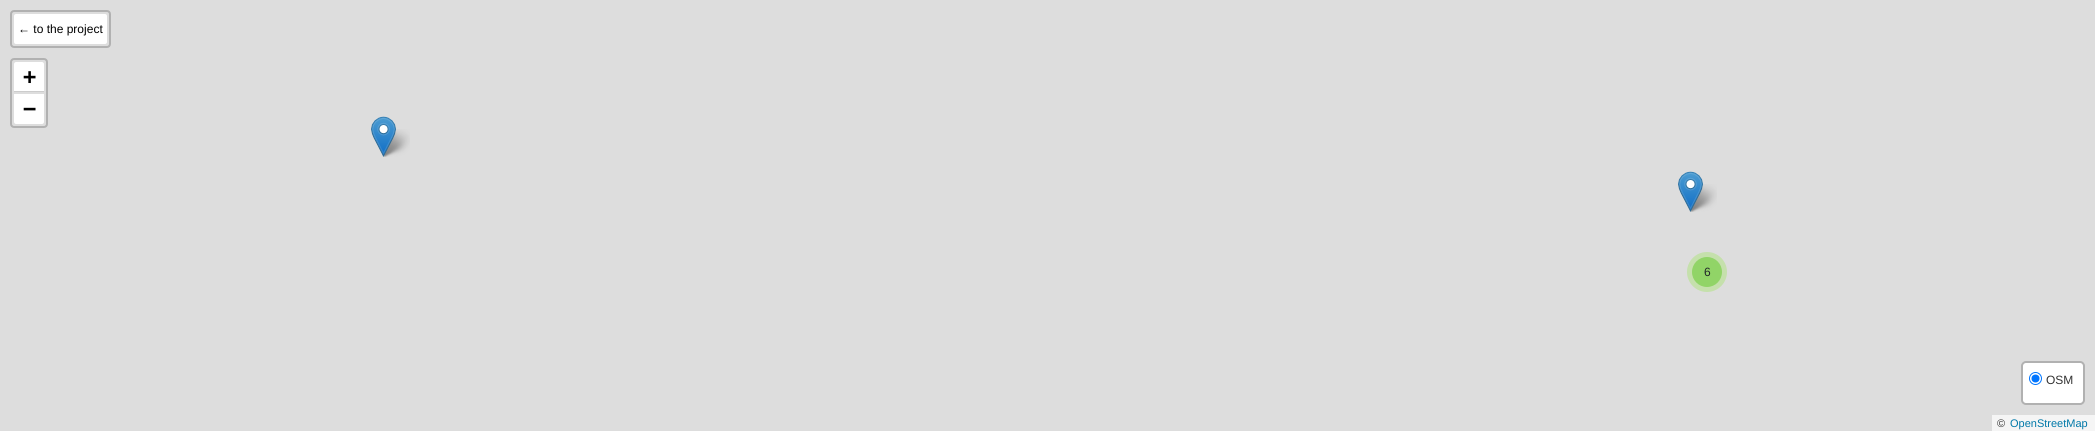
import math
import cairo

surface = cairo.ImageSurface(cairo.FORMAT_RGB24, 2095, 431)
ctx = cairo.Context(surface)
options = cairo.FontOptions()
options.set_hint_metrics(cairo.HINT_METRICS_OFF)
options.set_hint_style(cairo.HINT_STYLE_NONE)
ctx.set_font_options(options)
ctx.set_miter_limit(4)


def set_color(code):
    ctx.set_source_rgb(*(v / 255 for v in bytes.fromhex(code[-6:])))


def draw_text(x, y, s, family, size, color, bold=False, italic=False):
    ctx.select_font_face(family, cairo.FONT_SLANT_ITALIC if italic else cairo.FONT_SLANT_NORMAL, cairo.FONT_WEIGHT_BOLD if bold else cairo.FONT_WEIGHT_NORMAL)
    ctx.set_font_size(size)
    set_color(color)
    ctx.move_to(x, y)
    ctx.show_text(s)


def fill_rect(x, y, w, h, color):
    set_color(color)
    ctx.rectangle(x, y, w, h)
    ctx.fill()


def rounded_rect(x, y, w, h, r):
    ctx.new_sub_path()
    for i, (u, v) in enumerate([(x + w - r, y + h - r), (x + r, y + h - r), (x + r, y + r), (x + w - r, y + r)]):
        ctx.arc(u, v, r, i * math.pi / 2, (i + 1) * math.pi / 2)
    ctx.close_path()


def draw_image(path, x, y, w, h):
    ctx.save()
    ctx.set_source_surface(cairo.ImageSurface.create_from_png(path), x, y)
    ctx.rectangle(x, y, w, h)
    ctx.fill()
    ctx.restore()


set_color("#dddddd")
ctx.paint()
rounded_rect(11, 11, 99, 36, 3)
set_color("#b1b1b1")
ctx.stroke()
set_color("#ffffff")
rounded_rect(14, 14, 93, 30, 2)
ctx.fill()
draw_text(18, 33, "← to the project", "Liberation Sans", 12, "#000000")
rounded_rect(11, 59, 36, 68, 3)
set_color("#b1b1b1")
ctx.stroke()
set_color("#ffffff")
ctx.new_path()
ctx.move_to(16, 62)
ctx.line_to(42, 62)
ctx.curve_to(43, 62, 44, 63, 44, 64)
ctx.line_to(44, 92)
ctx.line_to(14, 92)
ctx.line_to(14, 64)
ctx.curve_to(14, 63, 15, 62, 16, 62)
ctx.close_path()
ctx.fill()
fill_rect(14, 91, 30, 1, "#cccccc")
draw_text(23, 84, "+", "DejaVu Sans Mono", 22, "#000000", bold=True)
set_color("#ffffff")
ctx.new_path()
ctx.move_to(14, 94)
ctx.line_to(44, 94)
ctx.line_to(44, 122)
ctx.curve_to(44, 123, 43, 124, 42, 124)
ctx.line_to(16, 124)
ctx.curve_to(15, 124, 14, 123, 14, 122)
ctx.close_path()
ctx.fill()
draw_text(23, 116, "−", "DejaVu Sans Mono", 22, "#000000", bold=True)
set_color("#ffffff")
rounded_rect(2022, 362, 62, 42, 4)
ctx.fill_preserve()
set_color("#b1b1b1")
ctx.stroke()
ctx.arc(2035.5, 378.5, 6, 0, 2 * math.pi)
set_color("#0075ff")
ctx.set_line_width(1)
ctx.stroke()
ctx.arc(2035.5, 378.5, 4, 0, 2 * math.pi)
ctx.fill()
draw_text(2046, 384, "OSM", "Liberation Sans", 12, "#333333")
fill_rect(1992, 415, 103, 16, "#f5f5f5")
draw_text(1997, 427, "©", "Liberation Sans", 11, "#333333")
draw_text(2010, 427, "OpenStreetMap", "Liberation Sans", 11, "#0078a8")
draw_image("assets/img1.png", 381, 129, 29, 28)
draw_image("assets/img1.png", 1688, 184, 29, 28)
draw_image("assets/img2.png", 371, 116, 25, 41)
draw_image("assets/img2.png", 1678, 171, 25, 41)
set_color("#c5e0ac")
ctx.arc(1707, 272, 20, 0, 2 * math.pi)
ctx.fill()
set_color("#91d467")
ctx.arc(1707, 272, 15, 0, 2 * math.pi)
ctx.fill()
draw_text(1704, 276, "6", "Liberation Sans", 12, "#212529")
surface.write_to_png("output.png")
